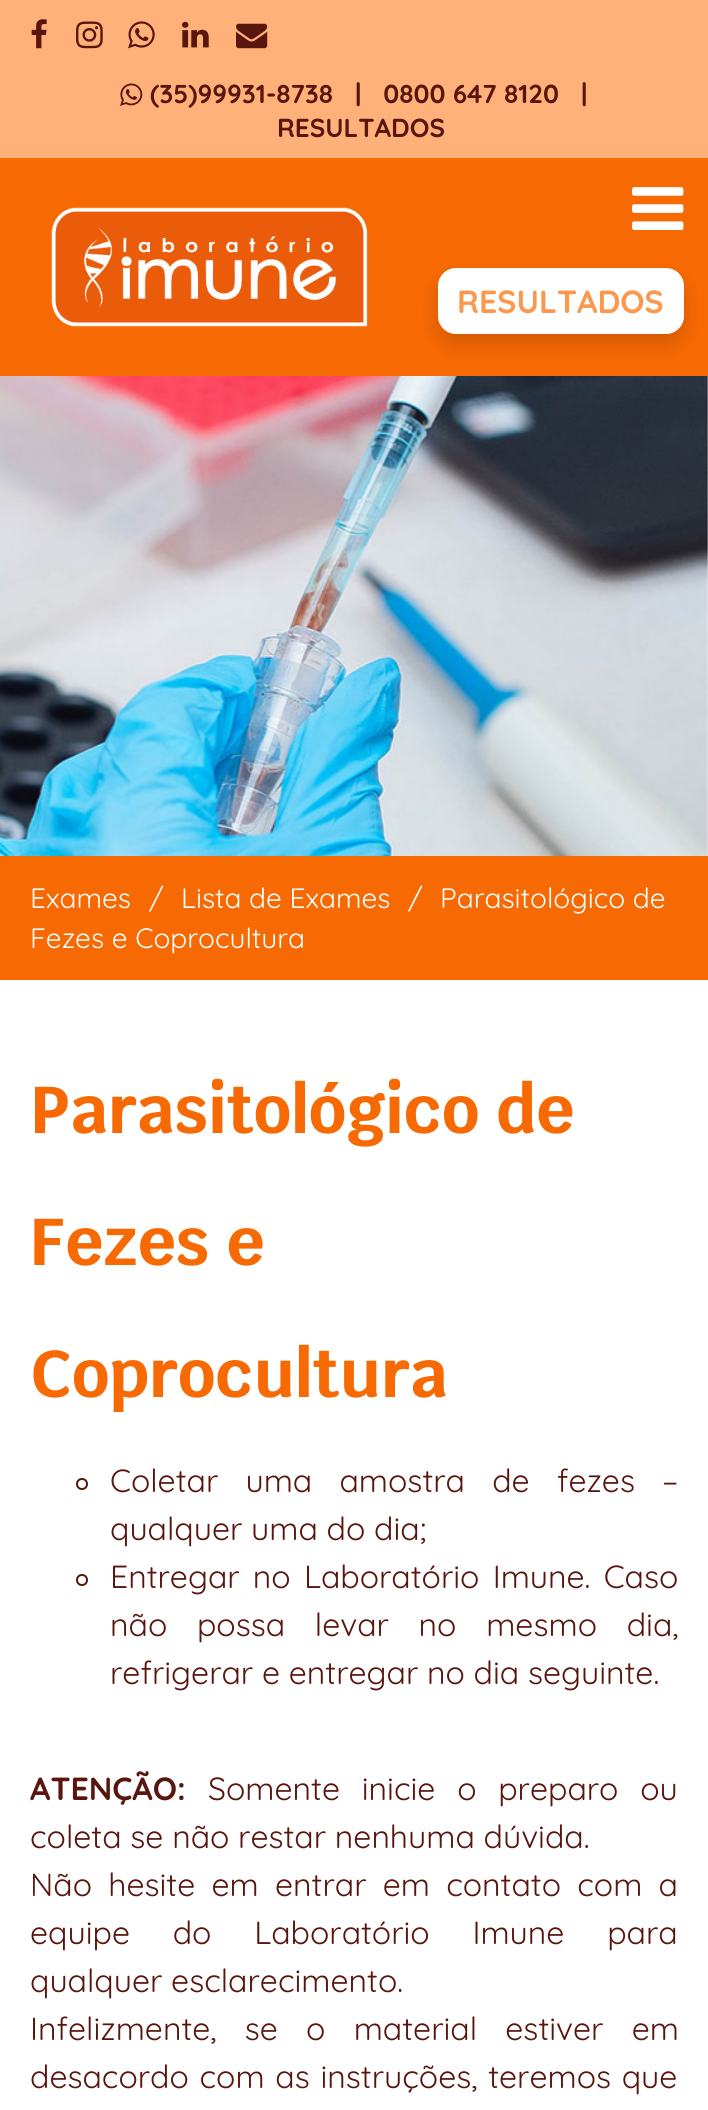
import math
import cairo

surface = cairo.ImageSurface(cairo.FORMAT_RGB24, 708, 2110)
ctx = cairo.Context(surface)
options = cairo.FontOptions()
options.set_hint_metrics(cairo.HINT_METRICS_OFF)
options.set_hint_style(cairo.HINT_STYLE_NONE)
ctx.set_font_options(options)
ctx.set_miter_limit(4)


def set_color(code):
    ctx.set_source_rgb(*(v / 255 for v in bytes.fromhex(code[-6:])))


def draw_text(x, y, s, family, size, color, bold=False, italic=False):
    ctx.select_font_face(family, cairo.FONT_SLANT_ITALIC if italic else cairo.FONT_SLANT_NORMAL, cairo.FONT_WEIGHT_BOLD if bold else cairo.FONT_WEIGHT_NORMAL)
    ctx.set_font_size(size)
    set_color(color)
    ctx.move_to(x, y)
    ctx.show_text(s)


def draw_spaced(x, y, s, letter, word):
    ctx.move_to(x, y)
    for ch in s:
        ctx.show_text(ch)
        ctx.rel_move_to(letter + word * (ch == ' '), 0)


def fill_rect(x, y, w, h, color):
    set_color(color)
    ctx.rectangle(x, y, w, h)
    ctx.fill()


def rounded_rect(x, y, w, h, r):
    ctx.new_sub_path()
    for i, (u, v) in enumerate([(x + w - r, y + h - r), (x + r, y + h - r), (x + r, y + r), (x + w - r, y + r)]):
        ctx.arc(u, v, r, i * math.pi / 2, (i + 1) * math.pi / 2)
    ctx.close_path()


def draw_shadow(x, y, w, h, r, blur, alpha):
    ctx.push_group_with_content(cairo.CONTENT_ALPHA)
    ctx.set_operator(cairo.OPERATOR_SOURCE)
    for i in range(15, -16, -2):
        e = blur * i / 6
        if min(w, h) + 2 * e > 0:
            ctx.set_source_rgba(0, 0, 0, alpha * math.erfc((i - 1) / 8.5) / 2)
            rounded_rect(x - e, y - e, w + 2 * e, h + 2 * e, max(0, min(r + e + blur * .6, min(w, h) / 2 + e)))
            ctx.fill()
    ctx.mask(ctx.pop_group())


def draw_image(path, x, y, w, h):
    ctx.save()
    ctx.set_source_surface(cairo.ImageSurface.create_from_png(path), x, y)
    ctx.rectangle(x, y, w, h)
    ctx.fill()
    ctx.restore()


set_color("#ffffff")
ctx.paint()
fill_rect(0, 0, 708, 158, "#ffb179")
draw_image("assets/img1.png", 31, 19, 16, 30)
draw_image("assets/img2.png", 76, 21, 27, 28)
draw_image("assets/img3.png", 128, 21, 27, 28)
draw_image("assets/img4.png", 182, 21, 27, 27)
draw_image("assets/img5.png", 236, 23, 32, 26)
draw_image("assets/img6.png", 120, 83, 23, 23)
draw_text(150, 103, "(35)99931-8738", "Quicksand", 26, "#59160f", bold=True)
draw_text(355, 103, "|   0800 647 8120", "Quicksand", 26, "#59160f", bold=True)
draw_text(581, 103, "|", "Quicksand", 26, "#59160f", bold=True)
draw_text(277, 137, "RESULTADOS", "Quicksand", 26, "#59160f", bold=True)
fill_rect(0, 158, 708, 218, "#f76903")
draw_image("assets/img7.png", 51, 207, 317, 120)
draw_image("assets/img8.png", 632, 187, 52, 43)
set_color("#000000")
draw_shadow(438, 278, 246, 66, 18, 10, 0.15)
set_color("#ffffff")
rounded_rect(438, 268, 246, 66, 18)
ctx.fill()
draw_text(457, 313, "RESULTADOS", "Quicksand", 32, "#fc974e", bold=True)
draw_image("assets/img9.png", 0, 376, 708, 480)
fill_rect(0, 856, 708, 124, "#f76903")
draw_text(30, 908, "Exames", "Quicksand", 28, "#ffffff")
draw_text(149, 908, "/", "Quicksand", 28, "#ffffff")
draw_text(181, 908, "Lista de Exames", "Quicksand", 28, "#ffffff")
draw_text(408, 908, "/", "Quicksand", 28, "#ffffff")
draw_text(440, 908, "Parasitológico de", "Quicksand", 28, "#ffffff")
draw_text(30, 948, "Fezes e Coprocultura", "Quicksand", 28, "#ffffff")
draw_text(30, 1133, "Parasitológico de", "Krub", 66, "#f76903", bold=True)
draw_text(30, 1265, "Fezes e", "Krub", 66, "#f76903", bold=True)
draw_text(30, 1397, "Coprocultura", "Krub", 66, "#f76903", bold=True)
ctx.new_path()
ctx.arc(82, 1484, 5, 0, 2 * math.pi)
set_color("#59160f")
ctx.stroke()
ctx.select_font_face("Quicksand")
ctx.set_font_size(32)
draw_spaced(110, 1492, "Coletar uma amostra de fezes –", 0, 18.5)
draw_text(110, 1540, "qualquer uma do dia;", "Quicksand", 32, "#59160f")
ctx.new_path()
ctx.arc(82, 1580, 5, 0, 2 * math.pi)
ctx.stroke()
draw_spaced(110, 1588, "Entregar no Laboratório Imune. Caso", 0, 4.5)
draw_spaced(110, 1636, "não possa levar no mesmo dia,", 0, 21)
draw_text(110, 1684, "refrigerar e entregar no dia seguinte.", "Quicksand", 32, "#59160f")
draw_text(30, 1800, "ATENÇÃO:", "Quicksand", 32, "#59160f", bold=True)
ctx.select_font_face("Quicksand")
draw_spaced(208, 1800, "Somente inicie o preparo ou", 0, 13)
draw_text(30, 1848, "coleta se não restar nenhuma dúvida.", "Quicksand", 32, "#59160f")
draw_spaced(30, 1896, "Não hesite em entrar em contato com a", 0, 7.5)
draw_spaced(30, 1944, "equipe do Laboratório Imune para", 0, 34)
draw_text(30, 1992, "qualquer esclarecimento.", "Quicksand", 32, "#59160f")
draw_spaced(30, 2040, "Infelizmente, se o material estiver em", 0, 19.5)
draw_spaced(30, 2088, "desacordo com as instruções, teremos que", 0, 2)
surface.write_to_png("output.png")
